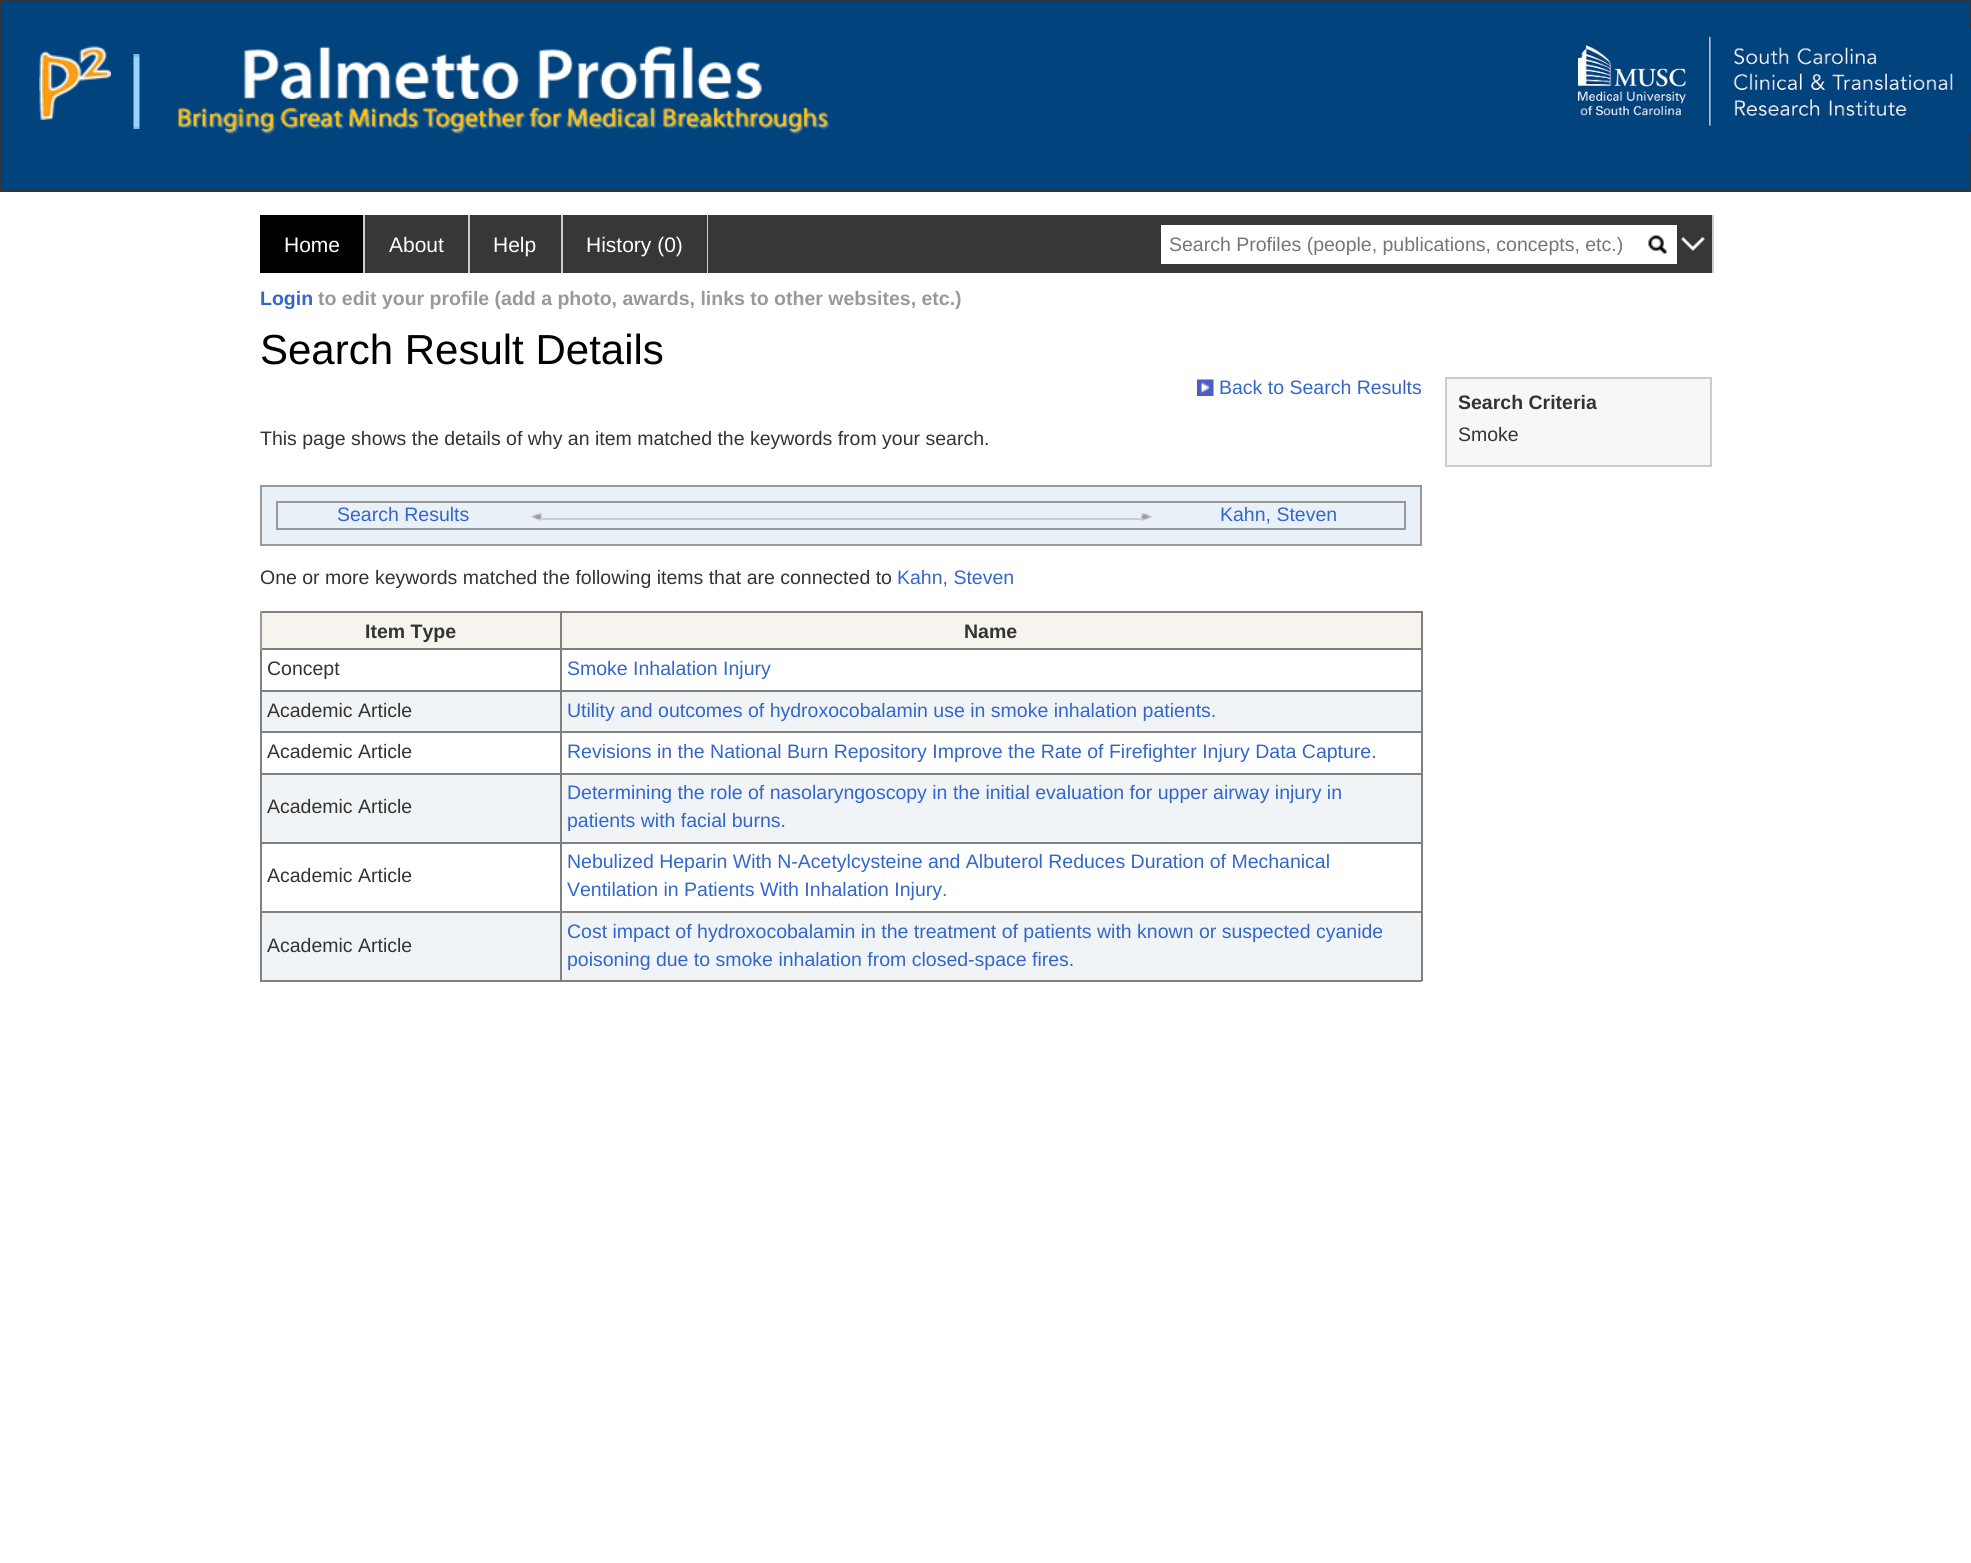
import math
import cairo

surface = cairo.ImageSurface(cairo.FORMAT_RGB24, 1971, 1563)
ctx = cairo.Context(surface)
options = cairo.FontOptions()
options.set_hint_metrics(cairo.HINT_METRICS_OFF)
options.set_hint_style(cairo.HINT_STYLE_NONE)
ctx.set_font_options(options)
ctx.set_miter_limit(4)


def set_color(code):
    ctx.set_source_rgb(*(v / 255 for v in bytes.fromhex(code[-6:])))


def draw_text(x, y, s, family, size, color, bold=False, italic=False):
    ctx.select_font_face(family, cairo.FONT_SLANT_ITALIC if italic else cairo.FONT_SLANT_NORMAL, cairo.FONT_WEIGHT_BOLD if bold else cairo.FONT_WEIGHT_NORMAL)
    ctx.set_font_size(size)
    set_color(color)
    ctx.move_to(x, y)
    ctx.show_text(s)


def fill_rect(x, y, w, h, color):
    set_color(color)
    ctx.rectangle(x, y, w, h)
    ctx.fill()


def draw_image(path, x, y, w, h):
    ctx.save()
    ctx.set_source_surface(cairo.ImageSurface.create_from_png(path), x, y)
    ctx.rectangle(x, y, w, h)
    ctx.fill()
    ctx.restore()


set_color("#ffffff")
ctx.paint()
set_color("#01437d")
ctx.rectangle(1, 1, 1969, 190)
ctx.fill_preserve()
set_color("#333333")
ctx.stroke()
draw_image("assets/img1.png", 39, 46, 72, 74)
draw_image("assets/img2.png", 133, 54, 7, 75)
draw_image("assets/img3.png", 244, 46, 518, 53)
draw_image("assets/img4.png", 178, 106, 652, 28)
draw_image("assets/img5.png", 1577, 30, 394, 102)
fill_rect(365, 215, 1347, 58, "#383737")
fill_rect(260, 215, 103, 58, "#000000")
fill_rect(363, 215, 2, 58, "#cccccc")
draw_text(284, 252, "Home", "Liberation Sans", 21, "#ffffff")
fill_rect(468, 215, 2, 58, "#cccccc")
draw_text(389, 252, "About", "Liberation Sans", 21, "#ffffff")
fill_rect(561, 215, 2, 58, "#cccccc")
draw_text(493, 252, "Help", "Liberation Sans", 21, "#ffffff")
fill_rect(707, 215, 1, 58, "#cccccc")
draw_text(586, 252, "History (0)", "Liberation Sans", 21, "#ffffff")
fill_rect(1161, 225, 516, 39, "#ffffff")
draw_text(1169, 251, "Search Profiles (people, publications, concepts, etc.)", "Liberation Sans", 19.5, "#757575")
draw_image("assets/img6.png", 1648, 235, 19, 19)
fill_rect(1712, 215, 2, 58, "#cccccc")
draw_image("assets/img7.png", 1681, 237, 24, 15)
draw_text(260, 305, "Login", "Liberation Sans", 19.5, "#3366cc", bold=True)
draw_text(318, 305, "to edit your profile (add a photo, awards, links to other websites, etc.)", "Liberation Sans", 19.5, "#999999", bold=True)
draw_text(260, 364, "Search Result Details", "Liberation Sans", 42, "#000000")
draw_image("assets/img8.png", 1197, 379, 17, 17)
draw_text(1219, 394, "Back to Search Results", "Liberation Sans", 19.5, "#3366cc")
draw_text(260, 445, "This page shows the details of why an item matched the keywords from your search.", "Liberation Sans", 19.5, "#333333")
set_color("#eaf0f8")
ctx.rectangle(261, 486, 1160, 59)
ctx.fill_preserve()
set_color("#999999")
ctx.stroke()
ctx.rectangle(277, 502, 1128, 27)
ctx.stroke()
draw_text(337, 521, "Search Results", "Liberation Sans", 19.5, "#3366cc")
draw_image("assets/img9.png", 531, 513, 11, 8)
draw_image("assets/img10.png", 1141, 513, 11, 8)
fill_rect(542, 518, 600, 2, "#cccccc")
draw_text(1220, 521, "Kahn, Steven", "Liberation Sans", 19.5, "#3366cc")
draw_text(260, 584, "One or more keywords matched the following items that are connected to", "Liberation Sans", 19.5, "#333333")
draw_text(897, 584, "Kahn, Steven", "Liberation Sans", 19.5, "#3366cc")
fill_rect(562, 611, 860, 2, "#808080")
fill_rect(1421, 611, 2, 37, "#808080")
fill_rect(262, 613, 298, 35, "#f7f3ef")
fill_rect(260, 611, 301, 2, "#808080")
fill_rect(560, 648, 862, 2, "#808080")
fill_rect(560, 690, 862, 2, "#808080")
fill_rect(262, 692, 1159, 39, "#f0f4f6")
fill_rect(560, 731, 862, 2, "#808080")
fill_rect(560, 773, 862, 2, "#808080")
fill_rect(262, 775, 1159, 67, "#f0f4f6")
fill_rect(560, 842, 862, 2, "#808080")
fill_rect(560, 911, 862, 2, "#808080")
fill_rect(262, 913, 1159, 67, "#f0f4f6")
fill_rect(1421, 911, 2, 70, "#808080")
fill_rect(560, 980, 862, 2, "#808080")
fill_rect(560, 911, 2, 70, "#808080")
fill_rect(260, 911, 301, 2, "#808080")
fill_rect(560, 842, 2, 70, "#808080")
fill_rect(260, 842, 301, 2, "#808080")
fill_rect(560, 773, 2, 70, "#808080")
fill_rect(260, 773, 301, 2, "#808080")
fill_rect(560, 731, 2, 43, "#808080")
fill_rect(260, 731, 301, 2, "#808080")
fill_rect(560, 690, 2, 42, "#808080")
fill_rect(260, 690, 301, 2, "#808080")
fill_rect(560, 648, 2, 44, "#808080")
fill_rect(260, 648, 301, 2, "#808080")
fill_rect(560, 611, 2, 39, "#808080")
fill_rect(260, 980, 301, 2, "#808080")
fill_rect(260, 911, 2, 70, "#808080")
fill_rect(260, 842, 2, 70, "#808080")
fill_rect(260, 773, 2, 70, "#808080")
fill_rect(260, 731, 2, 43, "#808080")
fill_rect(260, 690, 2, 42, "#808080")
fill_rect(260, 648, 2, 44, "#808080")
fill_rect(260, 611, 2, 39, "#999999")
draw_text(365, 638, "Item Type", "Liberation Sans", 19.5, "#333333", bold=True)
fill_rect(562, 613, 859, 35, "#f7f3ef")
draw_text(964, 638, "Name", "Liberation Sans", 19.5, "#333333", bold=True)
draw_text(267, 675, "Concept", "Liberation Sans", 19.5, "#333333")
fill_rect(1421, 842, 2, 70, "#808080")
fill_rect(1421, 773, 2, 70, "#808080")
fill_rect(1421, 731, 2, 43, "#808080")
fill_rect(1421, 690, 2, 42, "#808080")
fill_rect(1421, 648, 2, 44, "#808080")
draw_text(567, 675, "Smoke Inhalation Injury", "Liberation Sans", 19.5, "#3366cc")
draw_text(267, 717, "Academic Article", "Liberation Sans", 19.5, "#333333")
draw_text(567, 717, "Utility and outcomes of hydroxocobalamin use in smoke inhalation patients.", "Liberation Sans", 19.5, "#3366cc")
draw_text(267, 758, "Academic Article", "Liberation Sans", 19.5, "#333333")
draw_text(567, 758, "Revisions in the National Burn Repository Improve the Rate of Firefighter Injury Data Capture.", "Liberation Sans", 19.5, "#3366cc")
draw_text(267, 813, "Academic Article", "Liberation Sans", 19.5, "#333333")
draw_text(567, 799, "Determining the role of nasolaryngoscopy in the initial evaluation for upper airway injury in", "Liberation Sans", 19.5, "#3366cc")
draw_text(567, 827, "patients with facial burns.", "Liberation Sans", 19.5, "#3366cc")
draw_text(267, 882, "Academic Article", "Liberation Sans", 19.5, "#333333")
draw_text(567, 868, "Nebulized Heparin With N-Acetylcysteine and Albuterol Reduces Duration of Mechanical", "Liberation Sans", 19.5, "#3366cc")
draw_text(567, 896, "Ventilation in Patients With Inhalation Injury.", "Liberation Sans", 19.5, "#3366cc")
draw_text(267, 952, "Academic Article", "Liberation Sans", 19.5, "#333333")
draw_text(567, 938, "Cost impact of hydroxocobalamin in the treatment of patients with known or suspected cyanide", "Liberation Sans", 19.5, "#3366cc")
draw_text(567, 966, "poisoning due to smoke inhalation from closed-space fires.", "Liberation Sans", 19.5, "#3366cc")
set_color("#f7f7f7")
ctx.rectangle(1446, 378, 265, 88)
ctx.fill_preserve()
set_color("#cccccc")
ctx.stroke()
draw_text(1458, 409, "Search Criteria", "Liberation Sans", 19.5, "#333333", bold=True)
draw_text(1458, 441, "Smoke", "Liberation Sans", 19.5, "#333333")
surface.write_to_png("output.png")
